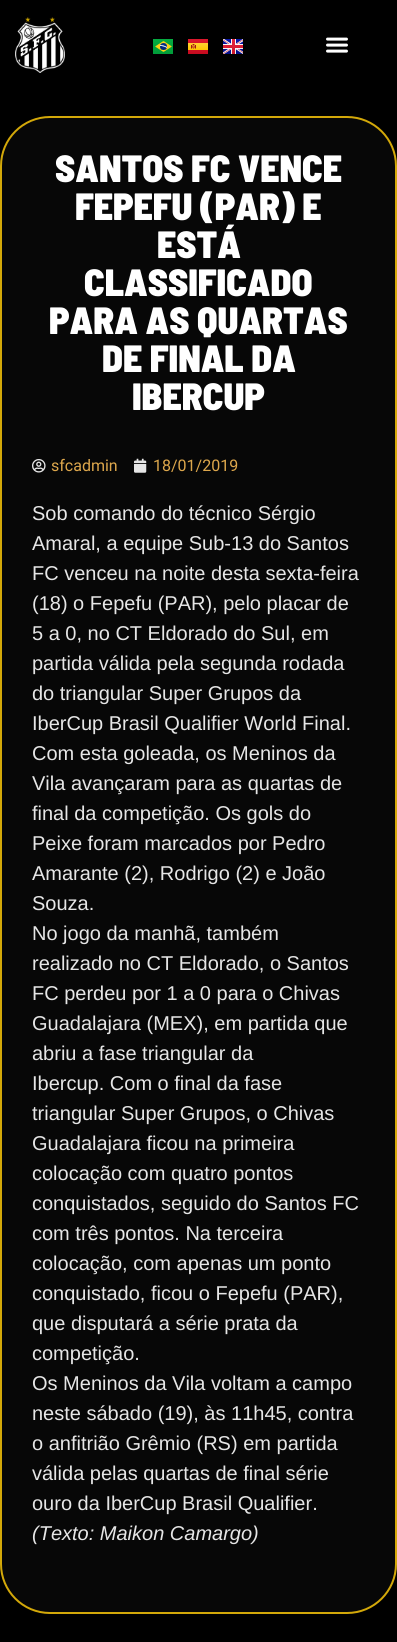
import math
import cairo

surface = cairo.ImageSurface(cairo.FORMAT_RGB24, 397, 1642)
ctx = cairo.Context(surface)
options = cairo.FontOptions()
options.set_hint_metrics(cairo.HINT_METRICS_OFF)
options.set_hint_style(cairo.HINT_STYLE_NONE)
ctx.set_font_options(options)
ctx.set_miter_limit(4)


def set_color(code):
    ctx.set_source_rgb(*(v / 255 for v in bytes.fromhex(code[-6:])))


def draw_text(x, y, s, family, size, color, bold=False, italic=False):
    ctx.select_font_face(family, cairo.FONT_SLANT_ITALIC if italic else cairo.FONT_SLANT_NORMAL, cairo.FONT_WEIGHT_BOLD if bold else cairo.FONT_WEIGHT_NORMAL)
    ctx.set_font_size(size)
    set_color(color)
    ctx.move_to(x, y)
    ctx.show_text(s)


def rounded_rect(x, y, w, h, r):
    ctx.new_sub_path()
    for i, (u, v) in enumerate([(x + w - r, y + h - r), (x + r, y + h - r), (x + r, y + r), (x + w - r, y + r)]):
        ctx.arc(u, v, r, i * math.pi / 2, (i + 1) * math.pi / 2)
    ctx.close_path()


def draw_image(path, x, y, w, h):
    ctx.save()
    ctx.set_source_surface(cairo.ImageSurface.create_from_png(path), x, y)
    ctx.rectangle(x, y, w, h)
    ctx.fill()
    ctx.restore()


set_color("#000000")
ctx.paint()
draw_image("assets/img1.png", 15, 17, 50, 56)
draw_image("assets/img2.png", 153, 39, 20, 15)
draw_image("assets/img3.png", 188, 39, 20, 15)
draw_image("assets/img4.png", 223, 39, 20, 15)
draw_image("assets/img5.png", 326, 37, 22, 16)
set_color("#070707")
rounded_rect(1, 117, 395, 1496, 49)
ctx.fill_preserve()
set_color("#d3a809")
ctx.stroke()
draw_text(55, 182, "SANTOS FC VENCE", "Barlow Semi Condensed Black", 38, "#ffffff")
draw_text(75, 220, "FEPEFU (PAR) E", "Barlow Semi Condensed Black", 38, "#ffffff")
draw_text(157, 258, "ESTÁ", "Barlow Semi Condensed Black", 38, "#ffffff")
draw_text(84, 296, "CLASSIFICADO", "Barlow Semi Condensed Black", 38, "#ffffff")
draw_text(49, 334, "PARA AS QUARTAS", "Barlow Semi Condensed Black", 38, "#ffffff")
draw_text(102, 372, "DE FINAL DA", "Barlow Semi Condensed Black", 38, "#ffffff")
draw_text(132, 410, "IBERCUP", "Barlow Semi Condensed Black", 38, "#ffffff")
draw_image("assets/img6.png", 32, 459, 14, 14)
draw_text(51, 471, "sfcadmin", "Roboto", 16, "#dda74c")
draw_image("assets/img7.png", 134, 458, 13, 15)
draw_text(153, 471, "18/01/2019", "Roboto", 16, "#dda74c")
draw_text(32, 520, "Sob comando do técnico Sérgio", "Liberation Sans", 20, "#e6e6e6")
draw_text(32, 550, "Amaral, a equipe Sub-13 do Santos", "Liberation Sans", 20, "#e6e6e6")
draw_text(32, 580, "FC venceu na noite desta sexta-feira", "Liberation Sans", 20, "#e6e6e6")
draw_text(32, 610, "(18) o Fepefu (PAR), pelo placar de", "Liberation Sans", 20, "#e6e6e6")
draw_text(32, 640, "5 a 0, no CT Eldorado do Sul, em", "Liberation Sans", 20, "#e6e6e6")
draw_text(32, 670, "partida válida pela segunda rodada", "Liberation Sans", 20, "#e6e6e6")
draw_text(32, 700, "do triangular Super Grupos da", "Liberation Sans", 20, "#e6e6e6")
draw_text(32, 730, "IberCup Brasil Qualifier World Final.", "Liberation Sans", 20, "#e6e6e6")
draw_text(32, 760, "Com esta goleada, os Meninos da", "Liberation Sans", 20, "#e6e6e6")
draw_text(32, 790, "Vila avançaram para as quartas de", "Liberation Sans", 20, "#e6e6e6")
draw_text(32, 820, "final da competição. Os gols do", "Liberation Sans", 20, "#e6e6e6")
draw_text(32, 850, "Peixe foram marcados por Pedro", "Liberation Sans", 20, "#e6e6e6")
draw_text(32, 880, "Amarante (2), Rodrigo (2) e João", "Liberation Sans", 20, "#e6e6e6")
draw_text(32, 910, "Souza.", "Liberation Sans", 20, "#e6e6e6")
draw_text(32, 940, "No jogo da manhã, também", "Liberation Sans", 20, "#e6e6e6")
draw_text(32, 970, "realizado no CT Eldorado, o Santos", "Liberation Sans", 20, "#e6e6e6")
draw_text(32, 1000, "FC perdeu por 1 a 0 para o Chivas", "Liberation Sans", 20, "#e6e6e6")
draw_text(32, 1030, "Guadalajara (MEX), em partida que", "Liberation Sans", 20, "#e6e6e6")
draw_text(32, 1060, "abriu a fase triangular da", "Liberation Sans", 20, "#e6e6e6")
draw_text(32, 1090, "Ibercup. Com o final da fase", "Liberation Sans", 20, "#e6e6e6")
draw_text(32, 1120, "triangular Super Grupos, o Chivas", "Liberation Sans", 20, "#e6e6e6")
draw_text(32, 1150, "Guadalajara ficou na primeira", "Liberation Sans", 20, "#e6e6e6")
draw_text(32, 1180, "colocação com quatro pontos", "Liberation Sans", 20, "#e6e6e6")
draw_text(32, 1210, "conquistados, seguido do Santos FC", "Liberation Sans", 20, "#e6e6e6")
draw_text(32, 1240, "com três pontos. Na terceira", "Liberation Sans", 20, "#e6e6e6")
draw_text(32, 1270, "colocação, com apenas um ponto", "Liberation Sans", 20, "#e6e6e6")
draw_text(32, 1300, "conquistado, ficou o Fepefu (PAR),", "Liberation Sans", 20, "#e6e6e6")
draw_text(32, 1330, "que disputará a série prata da", "Liberation Sans", 20, "#e6e6e6")
draw_text(32, 1360, "competição.", "Liberation Sans", 20, "#e6e6e6")
draw_text(32, 1390, "Os Meninos da Vila voltam a campo", "Liberation Sans", 20, "#e6e6e6")
draw_text(32, 1420, "neste sábado (19), às 11h45, contra", "Liberation Sans", 20, "#e6e6e6")
draw_text(32, 1450, "o anfitrião Grêmio (RS) em partida", "Liberation Sans", 20, "#e6e6e6")
draw_text(32, 1480, "válida pelas quartas de final série", "Liberation Sans", 20, "#e6e6e6")
draw_text(32, 1510, "ouro da IberCup Brasil Qualifier.", "Liberation Sans", 20, "#e6e6e6")
draw_text(32, 1540, "(Texto: Maikon Camargo)", "Liberation Sans", 20, "#e6e6e6", italic=True)
surface.write_to_png("output.png")
